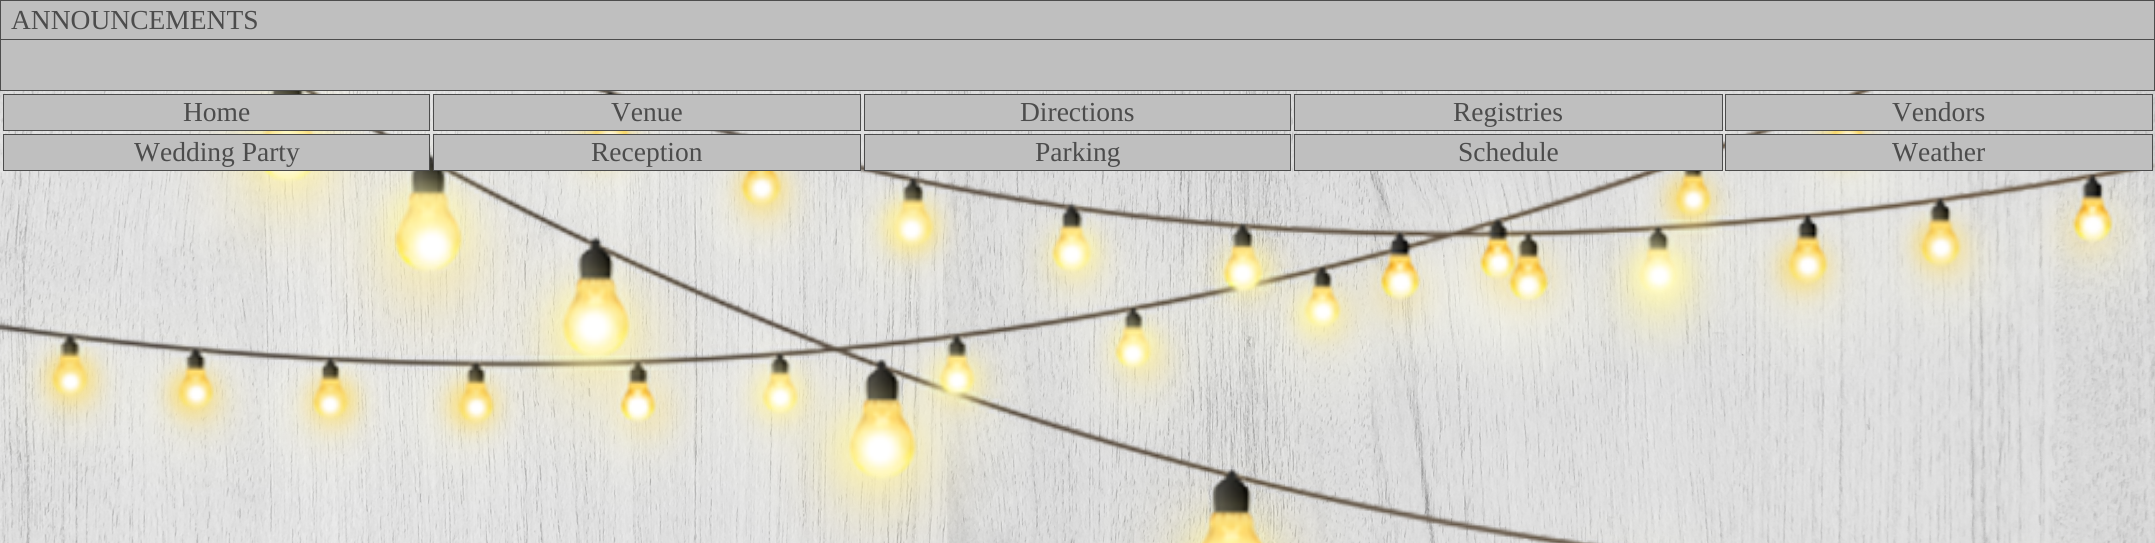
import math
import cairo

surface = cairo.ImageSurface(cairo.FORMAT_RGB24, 2155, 543)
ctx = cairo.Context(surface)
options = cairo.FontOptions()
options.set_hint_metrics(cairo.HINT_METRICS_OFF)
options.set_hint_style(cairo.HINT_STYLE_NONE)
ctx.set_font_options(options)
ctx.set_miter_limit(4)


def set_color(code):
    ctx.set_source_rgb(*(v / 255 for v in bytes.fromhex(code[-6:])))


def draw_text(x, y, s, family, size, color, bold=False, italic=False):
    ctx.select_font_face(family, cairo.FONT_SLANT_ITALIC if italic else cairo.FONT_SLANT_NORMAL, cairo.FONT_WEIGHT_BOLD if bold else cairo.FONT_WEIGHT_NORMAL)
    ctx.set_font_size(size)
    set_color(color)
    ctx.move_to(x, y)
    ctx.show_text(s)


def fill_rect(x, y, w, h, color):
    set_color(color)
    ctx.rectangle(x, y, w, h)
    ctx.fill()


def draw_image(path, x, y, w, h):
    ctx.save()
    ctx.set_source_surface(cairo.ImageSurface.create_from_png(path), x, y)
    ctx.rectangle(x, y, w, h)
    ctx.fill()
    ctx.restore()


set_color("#ffffff")
ctx.paint()
draw_image("assets/img1.png", 0, 91, 2155, 452)
draw_image("assets/img2.png", 0, 91, 2155, 452)
fill_rect(1, 1, 2153, 38, "#bfbfbf")
fill_rect(0, 0, 2155, 1, "#4c4c4c")
fill_rect(0, 39, 2155, 1, "#4c4c4c")
fill_rect(2154, 39, 1, 52, "#4c4c4c")
fill_rect(2154, 0, 1, 40, "#4c4c4c")
fill_rect(0, 90, 2155, 1, "#4c4c4c")
fill_rect(0, 39, 1, 52, "#4c4c4c")
fill_rect(0, 0, 1, 40, "#4c4c4c")
draw_text(11, 29, "ANNOUNCEMENTS", "Liberation Serif", 27.5, "#4c4c4c")
fill_rect(1, 40, 2153, 50, "#bfbfbf")
ctx.rectangle(3.5, 94.5, 426, 36)
ctx.fill_preserve()
set_color("#4c4c4c")
ctx.set_line_width(1)
ctx.stroke()
draw_text(183, 121, "Home", "Liberation Serif", 27.5, "#4c4c4c")
set_color("#bfbfbf")
ctx.rectangle(433.5, 94.5, 427, 36)
ctx.fill_preserve()
set_color("#4c4c4c")
ctx.stroke()
draw_text(611, 121, "Venue", "Liberation Serif", 27.5, "#4c4c4c")
set_color("#bfbfbf")
ctx.rectangle(864.5, 94.5, 426, 36)
ctx.fill_preserve()
set_color("#4c4c4c")
ctx.stroke()
draw_text(1020, 121, "Directions", "Liberation Serif", 27.5, "#4c4c4c")
set_color("#bfbfbf")
ctx.rectangle(1294.5, 94.5, 428, 36)
ctx.fill_preserve()
set_color("#4c4c4c")
ctx.stroke()
draw_text(1453, 121, "Registries", "Liberation Serif", 27.5, "#4c4c4c")
set_color("#bfbfbf")
ctx.rectangle(1725.5, 94.5, 427, 36)
ctx.fill_preserve()
set_color("#4c4c4c")
ctx.stroke()
draw_text(1892, 121, "Vendors", "Liberation Serif", 27.5, "#4c4c4c")
set_color("#bfbfbf")
ctx.rectangle(3.5, 134.5, 426, 36)
ctx.fill_preserve()
set_color("#4c4c4c")
ctx.stroke()
draw_text(134, 161, "Wedding Party", "Liberation Serif", 27.5, "#4c4c4c")
set_color("#bfbfbf")
ctx.rectangle(433.5, 134.5, 427, 36)
ctx.fill_preserve()
set_color("#4c4c4c")
ctx.stroke()
draw_text(591, 161, "Reception", "Liberation Serif", 27.5, "#4c4c4c")
set_color("#bfbfbf")
ctx.rectangle(864.5, 134.5, 426, 36)
ctx.fill_preserve()
set_color("#4c4c4c")
ctx.stroke()
draw_text(1035, 161, "Parking", "Liberation Serif", 27.5, "#4c4c4c")
set_color("#bfbfbf")
ctx.rectangle(1294.5, 134.5, 428, 36)
ctx.fill_preserve()
set_color("#4c4c4c")
ctx.stroke()
draw_text(1458, 161, "Schedule", "Liberation Serif", 27.5, "#4c4c4c")
set_color("#bfbfbf")
ctx.rectangle(1725.5, 134.5, 427, 36)
ctx.fill_preserve()
set_color("#4c4c4c")
ctx.stroke()
draw_text(1892, 161, "Weather", "Liberation Serif", 27.5, "#4c4c4c")
surface.write_to_png("output.png")
